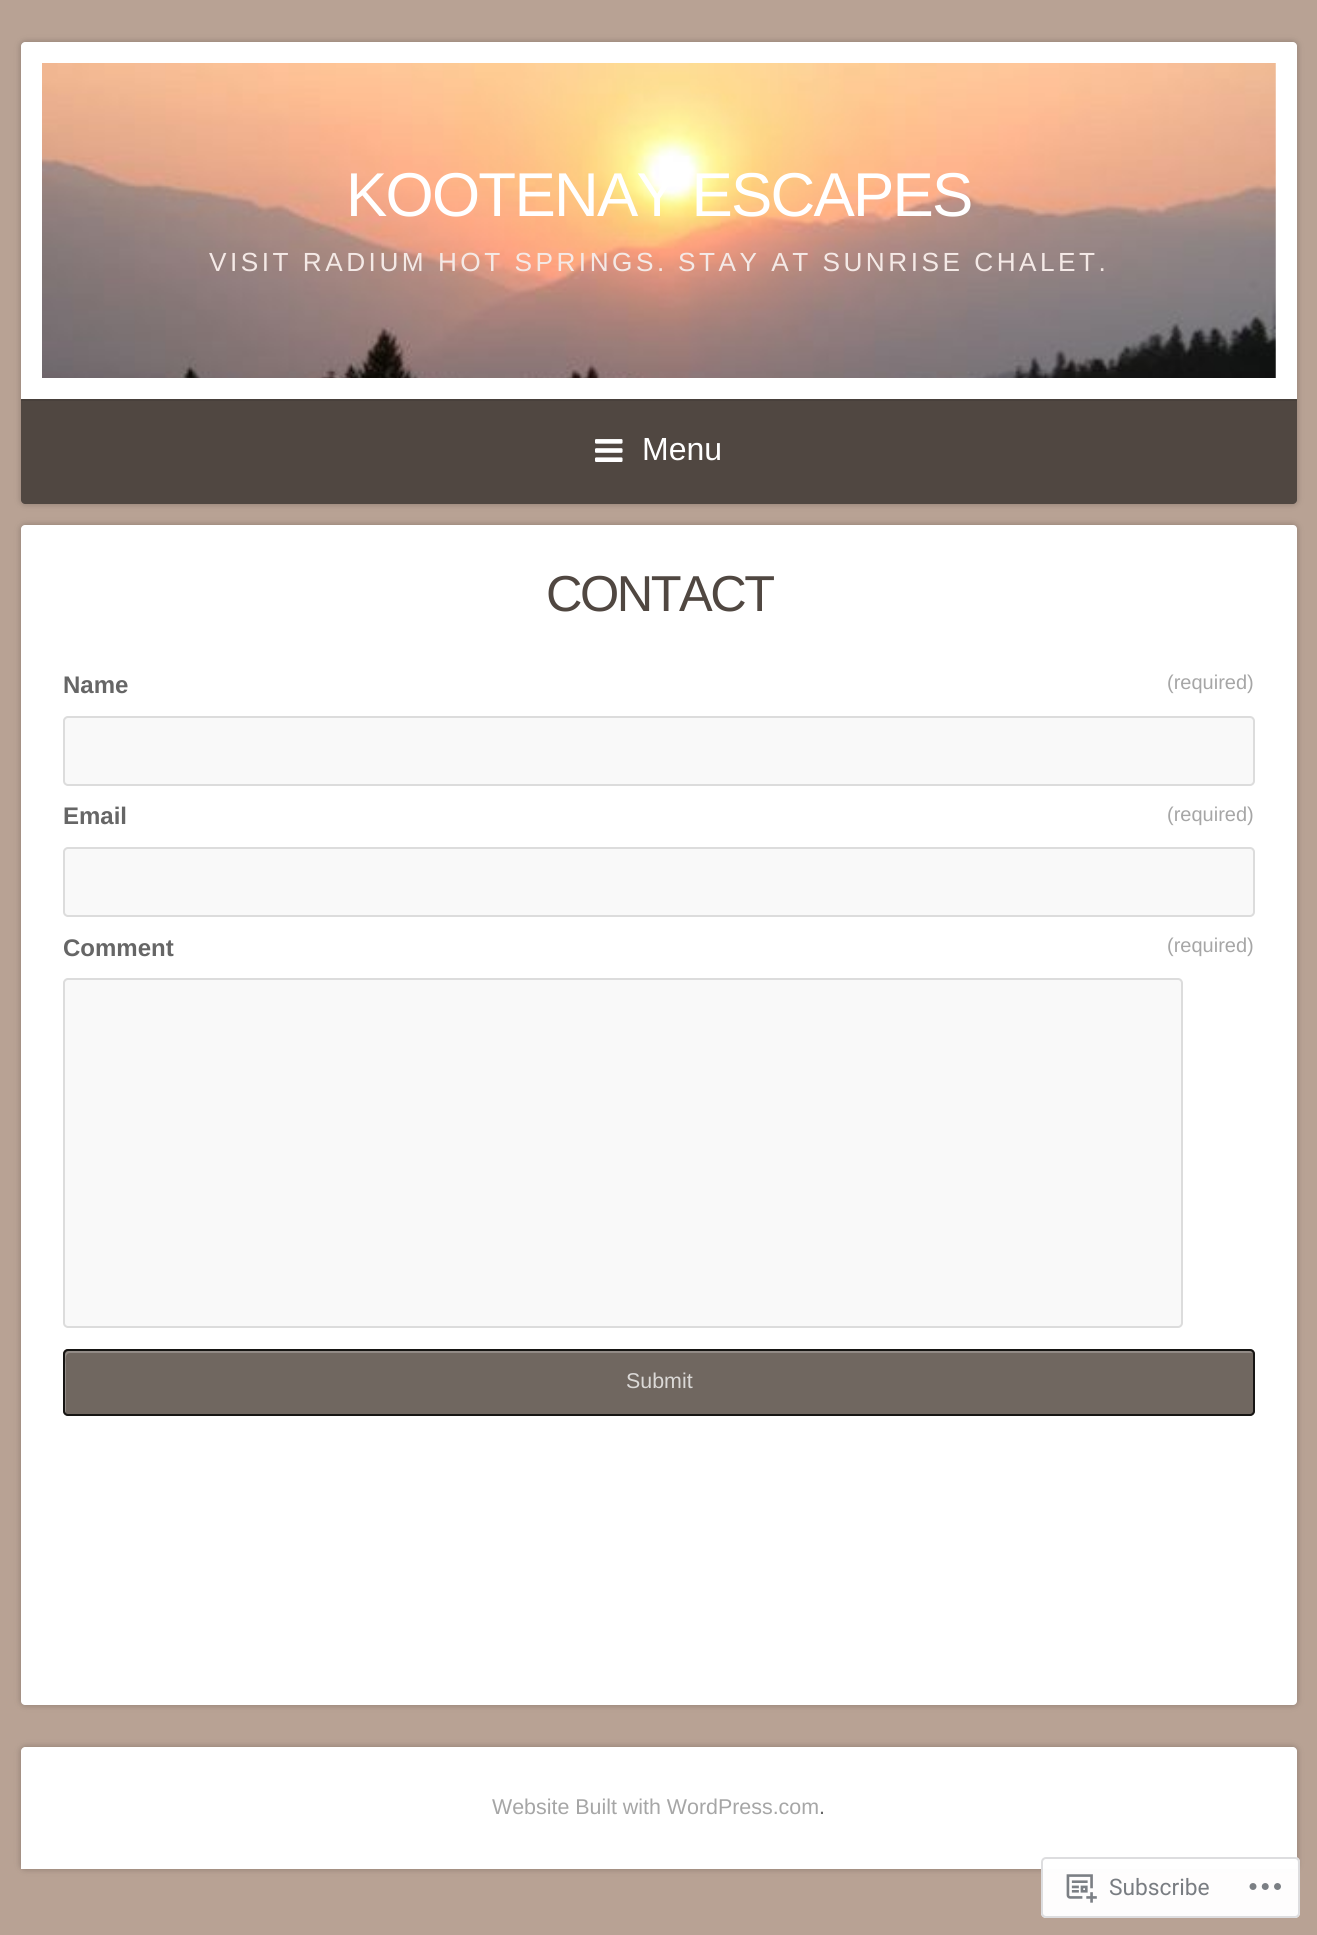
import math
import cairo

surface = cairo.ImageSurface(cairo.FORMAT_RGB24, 1317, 1935)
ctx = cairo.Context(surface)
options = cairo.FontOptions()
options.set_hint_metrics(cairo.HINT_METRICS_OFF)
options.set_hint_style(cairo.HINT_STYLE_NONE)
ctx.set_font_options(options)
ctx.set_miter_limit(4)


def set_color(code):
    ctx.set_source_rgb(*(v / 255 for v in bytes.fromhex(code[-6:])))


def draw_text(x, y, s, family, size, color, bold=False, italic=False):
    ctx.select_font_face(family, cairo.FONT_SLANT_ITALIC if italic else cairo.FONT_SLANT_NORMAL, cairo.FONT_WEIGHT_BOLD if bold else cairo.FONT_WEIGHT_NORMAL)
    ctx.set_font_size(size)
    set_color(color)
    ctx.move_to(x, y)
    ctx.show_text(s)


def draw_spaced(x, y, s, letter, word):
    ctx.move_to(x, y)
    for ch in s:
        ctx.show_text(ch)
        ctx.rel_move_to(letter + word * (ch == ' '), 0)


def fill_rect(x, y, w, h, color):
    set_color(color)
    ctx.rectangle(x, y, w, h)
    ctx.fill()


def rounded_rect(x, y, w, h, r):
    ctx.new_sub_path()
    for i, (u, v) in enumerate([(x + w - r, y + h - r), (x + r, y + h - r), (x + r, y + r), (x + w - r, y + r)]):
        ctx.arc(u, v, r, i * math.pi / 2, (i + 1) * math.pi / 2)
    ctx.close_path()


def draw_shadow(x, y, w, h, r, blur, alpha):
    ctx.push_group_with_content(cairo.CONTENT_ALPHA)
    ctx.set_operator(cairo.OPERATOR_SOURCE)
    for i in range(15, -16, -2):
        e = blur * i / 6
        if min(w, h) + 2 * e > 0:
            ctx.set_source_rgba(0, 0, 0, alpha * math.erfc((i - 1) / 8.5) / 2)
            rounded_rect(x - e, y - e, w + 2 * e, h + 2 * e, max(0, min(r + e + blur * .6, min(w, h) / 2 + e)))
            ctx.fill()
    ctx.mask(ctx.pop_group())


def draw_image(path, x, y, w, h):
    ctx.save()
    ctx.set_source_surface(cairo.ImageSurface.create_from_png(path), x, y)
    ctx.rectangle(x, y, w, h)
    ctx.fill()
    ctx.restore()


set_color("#b8a294")
ctx.paint()
set_color("#000000")
draw_shadow(21, 42, 1276, 462, 4, 3.5, 0.24)
set_color("#ffffff")
ctx.new_path()
ctx.move_to(25, 42)
ctx.line_to(1293, 42)
ctx.curve_to(1295, 42, 1297, 44, 1297, 46)
ctx.line_to(1297, 399)
ctx.line_to(21, 399)
ctx.line_to(21, 46)
ctx.curve_to(21, 44, 23, 42, 25, 42)
ctx.close_path()
ctx.fill()
draw_image("assets/img1.png", 42, 63, 1234, 315)
ctx.select_font_face("Arimo")
ctx.set_font_size(61.9)
draw_spaced(346, 216, "KOOTENAY ESCAPES", -1.75, 0)
ctx.set_font_size(26.2)
set_color("#f4e9e6")
draw_spaced(209, 271, "VISIT RADIUM HOT SPRINGS.", 3.5, 0)
draw_spaced(678, 271, "STAY AT SUNRISE CHALET.", 3.5, 0)
set_color("#504741")
ctx.new_path()
ctx.move_to(21, 399)
ctx.line_to(1297, 399)
ctx.line_to(1297, 500)
ctx.curve_to(1297, 502, 1295, 504, 1293, 504)
ctx.line_to(25, 504)
ctx.curve_to(23, 504, 21, 502, 21, 500)
ctx.close_path()
ctx.fill()
fill_rect(21, 399, 1276, 2, "#48403b")
draw_image("assets/img2.png", 595, 439, 28, 23)
draw_text(642, 460, "Menu", "Liberation Sans", 32, "#ffffff")
set_color("#000000")
draw_shadow(21, 525, 1276, 1180, 4, 3.5, 0.24)
set_color("#ffffff")
rounded_rect(21, 525, 1276, 1180, 4)
ctx.fill()
ctx.select_font_face("Arimo")
ctx.set_font_size(50.5)
set_color("#504741")
draw_spaced(546, 611, "CONTACT", -2.5, 0)
draw_text(63, 693, "Name", "Arimo", 24, "#666666", bold=True)
draw_text(1167, 689, "(required)", "Arimo", 20, "#a6a6a6")
set_color("#f9f9f9")
rounded_rect(63, 716, 1192, 70, 5)
ctx.fill()
rounded_rect(64, 717, 1190, 68, 4)
ctx.set_source_rgba(0, 0, 0, 0.12)
ctx.stroke()
draw_text(63, 824, "Email", "Arimo", 24, "#666666", bold=True)
draw_text(1167, 821, "(required)", "Arimo", 20, "#a6a6a6")
set_color("#f9f9f9")
rounded_rect(63, 847, 1192, 70, 5)
ctx.fill()
rounded_rect(64, 848, 1190, 68, 4)
ctx.set_source_rgba(0, 0, 0, 0.12)
ctx.stroke()
draw_text(63, 956, "Comment", "Arimo", 24, "#666666", bold=True)
draw_text(1167, 952, "(required)", "Arimo", 20, "#a6a6a6")
set_color("#f9f9f9")
rounded_rect(63, 978, 1120, 350, 5)
ctx.fill()
rounded_rect(64, 979, 1118, 348, 4)
ctx.set_source_rgba(0, 0, 0, 0.12)
ctx.stroke()
set_color("#706760")
rounded_rect(63, 1349, 1192, 67, 5)
ctx.fill()
set_color("#928b86")
ctx.new_path()
ctx.move_to(70, 1353)
ctx.line_to(1253, 1353)
ctx.curve_to(1252, 1352, 1251, 1351, 1249, 1351)
ctx.line_to(69, 1351)
ctx.curve_to(67, 1351, 65, 1353, 65, 1355)
ctx.line_to(65, 1410)
ctx.curve_to(65, 1411, 65, 1412, 66, 1413)
ctx.line_to(66, 1365)
ctx.curve_to(66, 1362, 64, 1353, 70, 1353)
ctx.close_path()
ctx.fill()
rounded_rect(64, 1350, 1190, 65, 4)
ctx.set_source_rgba(0, 0, 0, 0.8)
ctx.stroke()
draw_text(626, 1388, "Submit", "Liberation Sans", 21.4, "#dbd9d7")
set_color("#000000")
draw_shadow(21, 1747, 1276, 122, 4, 3.5, 0.24)
set_color("#ffffff")
ctx.new_path()
ctx.move_to(25, 1747)
ctx.line_to(1293, 1747)
ctx.curve_to(1295, 1747, 1297, 1749, 1297, 1751)
ctx.line_to(1297, 1869)
ctx.line_to(21, 1869)
ctx.line_to(21, 1751)
ctx.curve_to(21, 1749, 23, 1747, 25, 1747)
ctx.close_path()
ctx.fill()
draw_text(492, 1814, "Website Built with WordPress.com", "Arimo", 21.4, "#a6a6a6")
draw_text(819, 1814, ".", "Arimo", 21.4, "#666666")
ctx.set_source_rgba(1, 1, 1, 0.98)
rounded_rect(1041, 1857, 259, 61, 5)
ctx.fill()
rounded_rect(1042, 1858, 257, 59, 4)
ctx.set_source_rgba(0.863, 0.863, 0.871, 0.98)
ctx.stroke()
draw_image("assets/img3.png", 1066, 1874, 31, 29)
draw_text(1109, 1895, "Subscribe", "Roboto", 22.75, "#797d82")
draw_image("assets/img4.png", 1249, 1883, 32, 7)
surface.write_to_png("output.png")
